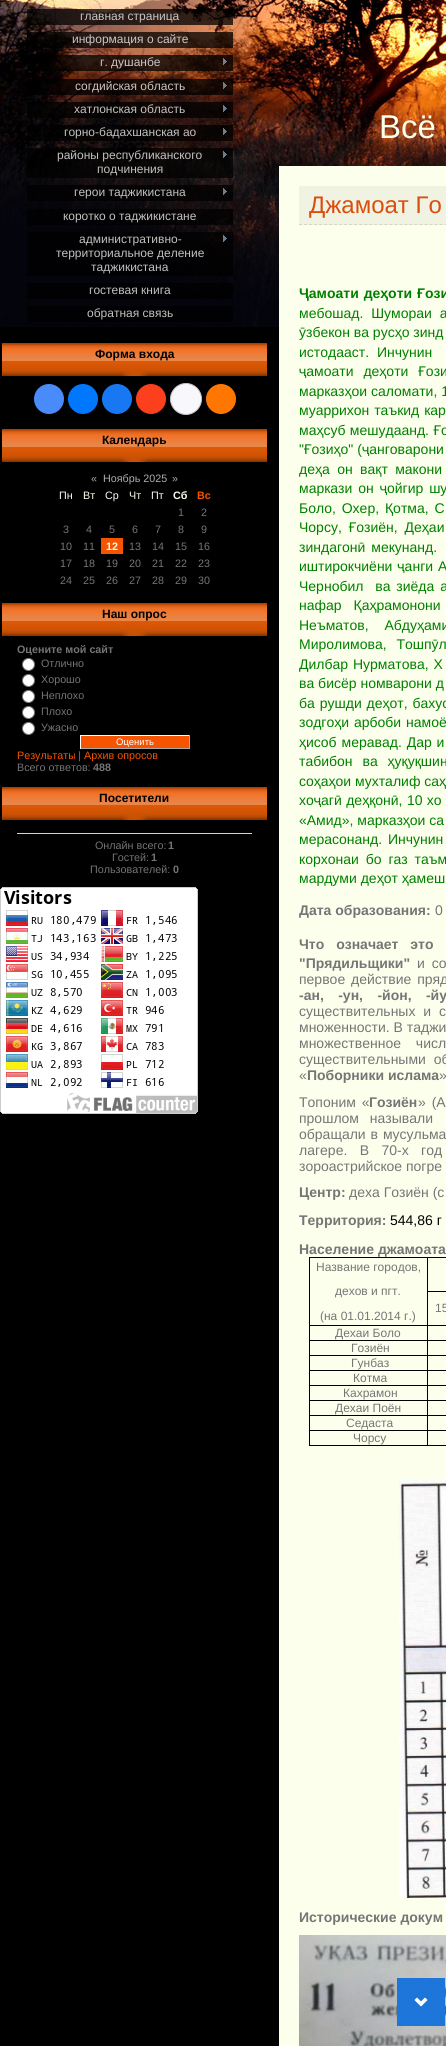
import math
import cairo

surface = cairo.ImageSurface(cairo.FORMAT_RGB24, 446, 2046)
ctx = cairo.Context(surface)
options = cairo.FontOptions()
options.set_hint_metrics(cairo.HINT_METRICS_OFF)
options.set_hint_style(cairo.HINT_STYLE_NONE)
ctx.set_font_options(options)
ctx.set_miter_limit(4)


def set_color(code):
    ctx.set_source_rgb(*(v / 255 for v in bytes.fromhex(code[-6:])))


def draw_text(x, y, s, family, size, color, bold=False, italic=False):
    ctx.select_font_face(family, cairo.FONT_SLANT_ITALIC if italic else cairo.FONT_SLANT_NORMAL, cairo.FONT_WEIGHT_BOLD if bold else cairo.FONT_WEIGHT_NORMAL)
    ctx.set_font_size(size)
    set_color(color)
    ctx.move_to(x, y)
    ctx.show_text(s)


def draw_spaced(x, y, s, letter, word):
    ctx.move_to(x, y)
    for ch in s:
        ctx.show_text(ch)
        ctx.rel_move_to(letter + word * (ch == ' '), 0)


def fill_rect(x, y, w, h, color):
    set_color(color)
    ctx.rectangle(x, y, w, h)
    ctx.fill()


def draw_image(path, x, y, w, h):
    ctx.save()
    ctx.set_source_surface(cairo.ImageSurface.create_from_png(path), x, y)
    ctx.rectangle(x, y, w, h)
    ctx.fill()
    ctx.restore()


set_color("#000000")
ctx.paint()
draw_image("assets/img1.png", 0, 0, 446, 327)
ctx.set_source_rgba(0, 0, 0, 0.75)
ctx.rectangle(27, 9, 206, 16)
ctx.fill()
draw_text(80, 20, "главная страница", "Liberation Sans", 12, "#c9c6c5")
ctx.set_source_rgba(0, 0, 0, 0.75)
ctx.rectangle(27, 32, 206, 16)
ctx.fill()
draw_text(72, 43, "информация о сайте", "Liberation Sans", 12, "#c9c6c5")
ctx.set_source_rgba(0, 0, 0, 0.75)
ctx.rectangle(27, 55, 206, 16)
ctx.fill()
draw_text(100, 66, "г. душанбе", "Liberation Sans", 12, "#c9c6c5")
draw_image("assets/img2.png", 223, 58, 4, 7)
ctx.set_source_rgba(0, 0, 0, 0.75)
ctx.rectangle(27, 79, 206, 16)
ctx.fill()
draw_text(75, 90, "согдийская область", "Liberation Sans", 12, "#c9c6c5")
draw_image("assets/img3.png", 223, 82, 4, 7)
ctx.set_source_rgba(0, 0, 0, 0.75)
ctx.rectangle(27, 102, 206, 16)
ctx.fill()
draw_text(74, 113, "хатлонская область", "Liberation Sans", 12, "#c2c1c0")
draw_image("assets/img4.png", 223, 105, 4, 7)
ctx.set_source_rgba(0, 0, 0, 0.75)
ctx.rectangle(27, 125, 206, 16)
ctx.fill()
draw_text(64, 136, "горно-бадахшанская ао", "Liberation Sans", 12, "#c2c1c0")
draw_image("assets/img5.png", 223, 128, 4, 7)
ctx.set_source_rgba(0, 0, 0, 0.75)
ctx.rectangle(27, 148, 206, 30)
ctx.fill()
draw_text(57, 159, "районы республиканского", "Liberation Sans", 12, "#c2c1c0")
draw_image("assets/img6.png", 223, 151, 4, 7)
draw_text(97, 173, "подчинения", "Liberation Sans", 12, "#c2c1c0")
ctx.set_source_rgba(0, 0, 0, 0.75)
ctx.rectangle(27, 185, 206, 16)
ctx.fill()
draw_text(74, 196, "герои таджикистана", "Liberation Sans", 12, "#c2c1c0")
draw_image("assets/img7.png", 223, 188, 4, 7)
ctx.set_source_rgba(0, 0, 0, 0.75)
ctx.rectangle(27, 209, 206, 16)
ctx.fill()
draw_text(63, 220, "коротко о таджикистане", "Liberation Sans", 12, "#c2c1c0")
ctx.set_source_rgba(0, 0, 0, 0.75)
ctx.rectangle(27, 232, 206, 44)
ctx.fill()
draw_text(79, 243, "административно-", "Liberation Sans", 12, "#c2c1c0")
draw_image("assets/img8.png", 223, 235, 4, 7)
draw_text(56, 257, "территориальное деление", "Liberation Sans", 12, "#c2c1c0")
draw_text(91, 271, "таджикистана", "Liberation Sans", 12, "#c2c1c0")
ctx.set_source_rgba(0, 0, 0, 0.75)
ctx.rectangle(27, 283, 206, 16)
ctx.fill()
draw_text(89, 294, "гостевая книга", "Liberation Sans", 12, "#c2c1c0")
ctx.set_source_rgba(0, 0, 0, 0.75)
ctx.rectangle(27, 306, 206, 16)
ctx.fill()
draw_text(87, 317, "обратная связь", "Liberation Sans", 12, "#c2c1c0")
draw_image("assets/img9.png", 2, 343, 265, 33)
draw_text(95, 358, "Форма входа", "Liberation Sans", 12, "#000000", bold=True)
set_color("#498bfa")
ctx.new_path()
ctx.arc(49, 399, 15, 0, 2 * math.pi)
ctx.fill()
set_color("#0077ff")
ctx.arc(83, 399, 15, 0, 2 * math.pi)
ctx.fill()
set_color("#1877f2")
ctx.arc(117, 399, 15, 0, 2 * math.pi)
ctx.fill()
set_color("#fc3f1d")
ctx.arc(151, 399, 15, 0, 2 * math.pi)
ctx.fill()
set_color("#f8f8fc")
ctx.arc(186, 399, 15.5, 0, 2 * math.pi)
ctx.fill_preserve()
set_color("#c4c4c4")
ctx.set_line_width(1)
ctx.stroke()
set_color("#ff7700")
ctx.arc(221, 399, 15, 0, 2 * math.pi)
ctx.fill()
draw_image("assets/img9.png", 2, 429, 265, 33)
draw_text(102, 444, "Календарь", "Liberation Sans", 12, "#000000", bold=True)
draw_text(91, 482, "«", "Liberation Sans", 10.75, "#adadad")
draw_text(103, 482, "Ноябрь 2025", "Liberation Sans", 10.75, "#adadad")
draw_text(172, 482, "»", "Liberation Sans", 10.75, "#adadad")
draw_text(59, 499, "Пн", "Liberation Sans", 10.75, "#fdffed")
draw_text(83, 499, "Вт", "Liberation Sans", 10.75, "#fdffed")
draw_text(105, 499, "Ср", "Liberation Sans", 10.75, "#fdffed")
draw_text(129, 499, "Чт", "Liberation Sans", 10.75, "#fdffed")
draw_text(151, 499, "Пт", "Liberation Sans", 10.75, "#fdffed")
draw_text(173, 499, "Сб", "Liberation Sans", 10.75, "#fdffed", bold=True)
draw_text(197, 499, "Вс", "Liberation Sans", 10.75, "#f65400", bold=True)
draw_text(178, 516, "1", "Liberation Sans", 10.75, "#757575")
draw_text(201, 516, "2", "Liberation Sans", 10.75, "#757575")
draw_text(63, 533, "3", "Liberation Sans", 10.75, "#757575")
draw_text(86, 533, "4", "Liberation Sans", 10.75, "#757575")
draw_text(109, 533, "5", "Liberation Sans", 10.75, "#757575")
draw_text(132, 533, "6", "Liberation Sans", 10.75, "#757575")
draw_text(155, 533, "7", "Liberation Sans", 10.75, "#757575")
draw_text(178, 533, "8", "Liberation Sans", 10.75, "#757575")
draw_text(201, 533, "9", "Liberation Sans", 10.75, "#757575")
draw_text(60, 550, "10", "Liberation Sans", 10.75, "#757575")
draw_text(83, 550, "11", "Liberation Sans", 10.75, "#757575")
fill_rect(101, 538, 22, 16, "#f65400")
draw_text(106, 550, "12", "Liberation Sans", 10.75, "#fdffed", bold=True)
draw_text(129, 550, "13", "Liberation Sans", 10.75, "#757575")
draw_text(152, 550, "14", "Liberation Sans", 10.75, "#757575")
draw_text(175, 550, "15", "Liberation Sans", 10.75, "#757575")
draw_text(198, 550, "16", "Liberation Sans", 10.75, "#757575")
draw_text(60, 567, "17", "Liberation Sans", 10.75, "#757575")
draw_text(83, 567, "18", "Liberation Sans", 10.75, "#757575")
draw_text(106, 567, "19", "Liberation Sans", 10.75, "#757575")
draw_text(129, 567, "20", "Liberation Sans", 10.75, "#757575")
draw_text(152, 567, "21", "Liberation Sans", 10.75, "#757575")
draw_text(175, 567, "22", "Liberation Sans", 10.75, "#757575")
draw_text(198, 567, "23", "Liberation Sans", 10.75, "#757575")
draw_text(60, 584, "24", "Liberation Sans", 10.75, "#757575")
draw_text(83, 584, "25", "Liberation Sans", 10.75, "#757575")
draw_text(106, 584, "26", "Liberation Sans", 10.75, "#757575")
draw_text(129, 584, "27", "Liberation Sans", 10.75, "#757575")
draw_text(152, 584, "28", "Liberation Sans", 10.75, "#757575")
draw_text(175, 584, "29", "Liberation Sans", 10.75, "#757575")
draw_text(198, 584, "30", "Liberation Sans", 10.75, "#757575")
draw_image("assets/img9.png", 2, 603, 265, 33)
draw_text(102, 618, "Наш опрос", "Liberation Sans", 12, "#000000", bold=True)
draw_text(17, 653, "Оцените мой сайт", "Liberation Sans", 10.75, "#757575", bold=True)
set_color("#ffffff")
ctx.new_path()
ctx.arc(28.5, 664.5, 6, 0, 2 * math.pi)
ctx.fill_preserve()
set_color("#767676")
ctx.stroke()
draw_text(41, 667, "Отлично", "Liberation Sans", 10.75, "#757575")
set_color("#ffffff")
ctx.new_path()
ctx.arc(28.5, 680.5, 6, 0, 2 * math.pi)
ctx.fill_preserve()
set_color("#767676")
ctx.stroke()
draw_text(41, 683, "Хорошо", "Liberation Sans", 10.75, "#757575")
set_color("#ffffff")
ctx.new_path()
ctx.arc(28.5, 696.5, 6, 0, 2 * math.pi)
ctx.fill_preserve()
set_color("#767676")
ctx.stroke()
draw_text(41, 699, "Неплохо", "Liberation Sans", 10.75, "#757575")
set_color("#ffffff")
ctx.new_path()
ctx.arc(28.5, 712.5, 6, 0, 2 * math.pi)
ctx.fill_preserve()
set_color("#767676")
ctx.stroke()
draw_text(41, 715, "Плохо", "Liberation Sans", 10.75, "#757575")
set_color("#ffffff")
ctx.new_path()
ctx.arc(28.5, 728.5, 6, 0, 2 * math.pi)
ctx.fill_preserve()
set_color("#767676")
ctx.stroke()
draw_text(41, 731, "Ужасно", "Liberation Sans", 10.75, "#757575")
fill_rect(81, 736, 108, 12, "#f65400")
fill_rect(80, 735, 110, 1, "#ffffff")
fill_rect(189, 735, 1, 14, "#aaaaaa")
fill_rect(80, 748, 110, 1, "#aaaaaa")
fill_rect(80, 735, 1, 14, "#ffffff")
draw_text(116, 745, "Оценить", "Liberation Sans", 9.5, "#ffffff")
draw_text(17, 759, "Результаты", "Liberation Sans", 10.75, "#f65400")
draw_text(78, 759, "|", "Liberation Sans", 10.75, "#757575")
draw_text(84, 759, "Архив опросов", "Liberation Sans", 10.75, "#f65400")
draw_text(17, 771, "Всего ответов:", "Liberation Sans", 10.75, "#757575")
draw_text(93, 771, "488", "Liberation Sans", 10.75, "#757575", bold=True)
draw_image("assets/img9.png", 2, 787, 265, 33)
draw_text(99, 802, "Посетители", "Liberation Sans", 12, "#000000", bold=True)
fill_rect(17, 833, 235, 1, "#d3d5c6")
draw_text(95, 849, "Онлайн всего:", "Liberation Sans", 10.75, "#757575")
draw_text(168, 849, "1", "Liberation Sans", 10.75, "#757575", bold=True)
draw_text(112, 861, "Гостей:", "Liberation Sans", 10.75, "#757575")
draw_text(151, 861, "1", "Liberation Sans", 10.75, "#757575", bold=True)
draw_text(90, 873, "Пользователей:", "Liberation Sans", 10.75, "#757575")
draw_text(173, 873, "0", "Liberation Sans", 10.75, "#757575", bold=True)
draw_image("assets/img10.png", 0, 887, 198, 227)
draw_text(379, 138, "Всё", "Liberation Sans", 33, "#fdffed")
fill_rect(279, 166, 167, 1880, "#fdffed")
fill_rect(299, 186, 147, 39, "#f1f3e2")
ctx.new_path()
ctx.move_to(299, 224.5)
ctx.line_to(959, 224.5)
set_color("#d3d5c6")
ctx.set_dash([3, 2.02])
ctx.stroke()
draw_text(309, 213, "Джамоат Го", "Liberation Sans", 24, "#da4d0e")
ctx.select_font_face("Liberation Sans", cairo.FONT_SLANT_NORMAL, cairo.FONT_WEIGHT_BOLD)
ctx.set_font_size(14)
set_color("#008000")
draw_spaced(299, 298, "Ҷамоати деҳоти Ғози", 0, 1)
ctx.select_font_face("Liberation Sans")
draw_spaced(299, 318, "мебошад. Шумораи а", 0, 4)
draw_text(299, 337, "ӯзбекон ва русҳо зинд", "Liberation Sans", 14, "#008000")
draw_spaced(299, 357, "истодааст. Инчунин", 0, 4)
draw_spaced(299, 376, "ҷамоати деҳоти Ғози", 0, 6)
draw_text(299, 396, "марказҳои саломати, 1", "Liberation Sans", 14, "#008000")
draw_spaced(299, 415, "муаррихон таъкид кар", 0, 1)
draw_spaced(299, 435, "маҳсуб мешудаанд. Ғо", 0, 0.5)
draw_text(299, 454, "\"Ғозиҳо\" (ҷанговарони", "Liberation Sans", 14, "#008000")
draw_spaced(299, 474, "деҳа он вақт макони", 0, 3.5)
draw_spaced(299, 493, "маркази он ҷойгир шу", 0, 2)
draw_spaced(299, 513, "Боло, Охер, Қотма, С", 0, 2)
draw_spaced(299, 532, "Чорсу, Ғозиён, Деҳаи", 0, 3)
draw_spaced(299, 552, "зиндагонӣ мекунанд.", 0, 2)
draw_spaced(299, 571, "иштирокчиёни ҷанги А", 0, 1)
draw_spaced(299, 591, "Чернобил  ва зиёда а", 0, 2)
draw_spaced(299, 610, "нафар Қаҳрамонони", 0, 8)
draw_spaced(299, 630, "Неъматов, Абдуҳами", 0, 12)
draw_spaced(299, 649, "Миролимова, Тошпӯл", 0, 6)
draw_spaced(299, 669, "Дилбар Нурматова, Х", 0, 1)
draw_text(299, 688, "ва бисёр номварони д", "Liberation Sans", 14, "#008000")
draw_spaced(299, 708, "ба рушди деҳот, бахус", 0, 1)
draw_spaced(299, 727, "зодгоҳи арбоби намоё", 0, 1)
draw_spaced(299, 747, "ҳисоб меравад. Дар и", 0, 1)
draw_spaced(299, 766, "табибон ва ҳуқуқшин", 0, 6)
draw_text(299, 786, "соҳаҳои мухталиф саҳ", "Liberation Sans", 14, "#008000")
draw_spaced(299, 805, "хоҷагӣ деҳқонӣ, 10 хо", 0, 0.5)
draw_text(299, 825, "«Амид», марказҳои са", "Liberation Sans", 14, "#008000")
draw_spaced(299, 844, "мерасонанд. Инчунин", 0, 2)
draw_spaced(299, 864, "корхонаи бо газ таъм", 0, 3)
draw_text(299, 883, "мардуми деҳот ҳамеш", "Liberation Sans", 14, "#008000")
draw_text(299, 915, "Дата образования:", "Liberation Sans", 14, "#757575", bold=True)
draw_text(435, 915, "0", "Liberation Sans", 14, "#757575")
ctx.select_font_face("Liberation Sans", cairo.FONT_SLANT_NORMAL, cairo.FONT_WEIGHT_BOLD)
draw_spaced(299, 949, "Что означает это", 0, 8)
draw_text(299, 968, "\"Прядильщики\"", "Liberation Sans", 14, "#757575", bold=True)
ctx.select_font_face("Liberation Sans")
draw_spaced(417, 968, "и со", 0, 3)
draw_spaced(299, 984, "первое действие пряд", 0, 2)
ctx.select_font_face("Liberation Sans", cairo.FONT_SLANT_NORMAL, cairo.FONT_WEIGHT_BOLD)
draw_spaced(299, 1000, "-ан, -ун, -йон, -йу", 0, 10.5)
ctx.select_font_face("Liberation Sans")
draw_spaced(299, 1016, "существительных и с", 0, 4)
draw_text(299, 1032, "множенности. В таджи", "Liberation Sans", 14, "#757575")
draw_spaced(299, 1048, "множественное числ", 0, 11)
draw_spaced(299, 1064, "существительными об", 0, 4)
draw_text(299, 1080, "«", "Liberation Sans", 14, "#757575")
draw_text(307, 1080, "Поборники ислама", "Liberation Sans", 14, "#757575", bold=True)
draw_text(439, 1080, "»", "Liberation Sans", 14, "#757575")
draw_spaced(299, 1107, "Топоним «", 0, 2)
draw_text(369, 1107, "Гозиён", "Liberation Sans", 14, "#757575", bold=True)
ctx.select_font_face("Liberation Sans")
draw_spaced(418, 1107, "» (А", 0, 2)
draw_spaced(299, 1123, "прошлом называли", 0, 7)
draw_spaced(299, 1139, "обращали в мусульма", 0, 1)
draw_spaced(299, 1155, "лагере. В 70-х год", 0, 8.5)
draw_text(299, 1171, "зороастрийское погре", "Liberation Sans", 14, "#757575")
draw_text(299, 1197, "Центр:", "Liberation Sans", 14, "#757575", bold=True)
draw_text(349, 1197, "деха Гозиён (с", "Liberation Sans", 14, "#757575")
draw_text(299, 1225, "Территория:", "Liberation Sans", 14, "#757575", bold=True)
draw_text(390, 1225, "544,86 г", "Liberation Sans", 14, "#000000")
draw_text(299, 1254, "Население джамоата", "Liberation Sans", 14, "#757575", bold=True)
fill_rect(309, 1257, 137, 1, "#000000")
fill_rect(427, 1291, 19, 1, "#000000")
fill_rect(427, 1445, 19, 1, "#000000")
fill_rect(427, 1430, 1, 16, "#000000")
fill_rect(427, 1430, 19, 1, "#000000")
fill_rect(427, 1415, 1, 16, "#000000")
fill_rect(427, 1415, 19, 1, "#000000")
fill_rect(427, 1400, 1, 16, "#000000")
fill_rect(427, 1400, 19, 1, "#000000")
fill_rect(427, 1385, 1, 16, "#000000")
fill_rect(427, 1385, 19, 1, "#000000")
fill_rect(427, 1370, 1, 16, "#000000")
fill_rect(427, 1370, 19, 1, "#000000")
fill_rect(427, 1355, 1, 16, "#000000")
fill_rect(427, 1355, 19, 1, "#000000")
fill_rect(427, 1340, 1, 16, "#000000")
fill_rect(427, 1340, 19, 1, "#000000")
fill_rect(427, 1325, 1, 16, "#000000")
fill_rect(427, 1325, 19, 1, "#000000")
fill_rect(427, 1257, 1, 69, "#000000")
fill_rect(309, 1445, 119, 1, "#000000")
fill_rect(309, 1430, 1, 16, "#000000")
fill_rect(309, 1430, 119, 1, "#000000")
fill_rect(309, 1415, 1, 16, "#000000")
fill_rect(309, 1415, 119, 1, "#000000")
fill_rect(309, 1400, 1, 16, "#000000")
fill_rect(309, 1400, 119, 1, "#000000")
fill_rect(309, 1385, 1, 16, "#000000")
fill_rect(309, 1385, 119, 1, "#000000")
fill_rect(309, 1370, 1, 16, "#000000")
fill_rect(309, 1370, 119, 1, "#000000")
fill_rect(309, 1355, 1, 16, "#000000")
fill_rect(309, 1355, 119, 1, "#000000")
fill_rect(309, 1340, 1, 16, "#000000")
fill_rect(309, 1340, 119, 1, "#000000")
fill_rect(309, 1325, 1, 16, "#000000")
fill_rect(309, 1325, 119, 1, "#000000")
fill_rect(309, 1257, 1, 69, "#000000")
draw_text(316, 1271, "Название городов,", "Liberation Sans", 12, "#757575")
draw_text(335, 1295, "дехов и пгт.", "Liberation Sans", 12, "#757575")
draw_text(320, 1320, "(на 01.01.2014 г.)", "Liberation Sans", 12, "#757575")
draw_text(435, 1312, "15", "Liberation Sans", 12, "#757575")
draw_text(335, 1337, "Дехаи Боло", "Liberation Sans", 12, "#757575")
draw_text(351, 1352, "Гозиён", "Liberation Sans", 12, "#757575")
draw_text(351, 1367, "Гунбаз", "Liberation Sans", 12, "#757575")
draw_text(353, 1382, "Котма", "Liberation Sans", 12, "#757575")
draw_text(343, 1397, "Кахрамон", "Liberation Sans", 12, "#757575")
draw_text(335, 1412, "Дехаи Поён", "Liberation Sans", 12, "#757575")
draw_text(346, 1427, "Седаста", "Liberation Sans", 12, "#757575")
draw_text(353, 1442, "Чорсу", "Liberation Sans", 12, "#757575")
draw_image("assets/img11.png", 399, 1479, 47, 419)
draw_text(299, 1922, "Исторические докум", "Liberation Sans", 14, "#757575", bold=True)
draw_image("assets/img12.png", 299, 1935, 147, 111)
draw_image("assets/img13.png", 397, 1978, 48, 48)
surface.write_to_png("output.png")
